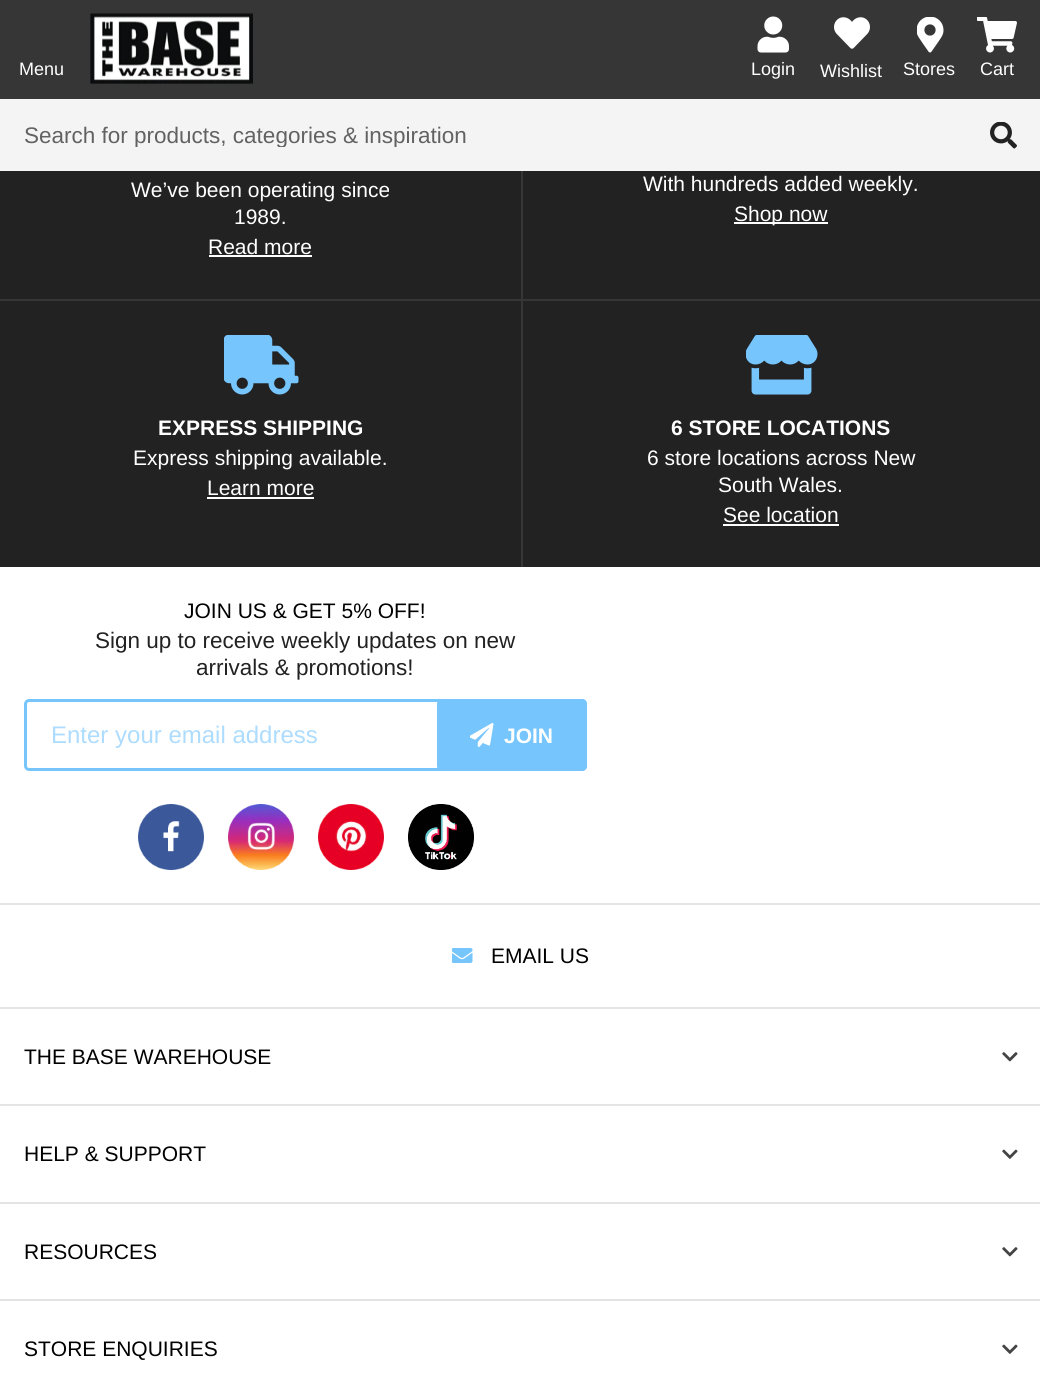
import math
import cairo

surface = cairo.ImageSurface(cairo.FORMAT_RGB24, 1040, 1395)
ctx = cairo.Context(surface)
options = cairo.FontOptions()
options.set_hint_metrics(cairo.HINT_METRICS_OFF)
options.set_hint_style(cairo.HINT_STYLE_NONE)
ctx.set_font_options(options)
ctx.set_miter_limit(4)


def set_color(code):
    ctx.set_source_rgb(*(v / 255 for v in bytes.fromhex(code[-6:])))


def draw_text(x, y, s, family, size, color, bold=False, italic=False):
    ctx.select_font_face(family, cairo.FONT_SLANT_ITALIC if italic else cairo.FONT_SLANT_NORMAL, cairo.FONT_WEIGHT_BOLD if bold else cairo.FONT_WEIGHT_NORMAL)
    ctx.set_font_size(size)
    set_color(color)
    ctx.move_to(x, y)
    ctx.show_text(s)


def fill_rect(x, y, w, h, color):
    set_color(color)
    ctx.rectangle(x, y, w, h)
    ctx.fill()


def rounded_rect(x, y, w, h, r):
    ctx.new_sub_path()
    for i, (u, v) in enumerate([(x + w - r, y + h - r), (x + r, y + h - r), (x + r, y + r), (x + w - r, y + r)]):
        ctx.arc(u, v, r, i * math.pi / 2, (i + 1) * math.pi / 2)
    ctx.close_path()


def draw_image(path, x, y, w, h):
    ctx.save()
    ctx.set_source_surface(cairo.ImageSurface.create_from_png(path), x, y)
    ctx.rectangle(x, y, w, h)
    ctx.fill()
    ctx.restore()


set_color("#ffffff")
ctx.paint()
fill_rect(0, 0, 1040, 99, "#363637")
draw_text(19, 75, "Menu", "Liberation Sans", 18, "#ffffff")
draw_image("assets/img1.png", 90, 13, 163, 71)
draw_image("assets/img2.png", 757, 16, 32, 37)
draw_text(751, 75, "Login", "Liberation Sans", 18, "#ffffff")
draw_image("assets/img3.png", 834, 17, 36, 32)
draw_text(820, 77, "Wishlist", "Liberation Sans", 18, "#ffffff")
draw_image("assets/img4.png", 917, 17, 27, 36)
draw_text(903, 75, "Stores", "Liberation Sans", 18, "#ffffff")
draw_image("assets/img5.png", 977, 17, 40, 36)
draw_text(980, 75, "Cart", "Liberation Sans", 18, "#ffffff")
fill_rect(0, 99, 1040, 72, "#f4f4f4")
ctx.save()
ctx.rectangle(24, 122, 993, 25)
ctx.clip()
draw_text(24, 143, "Search for products, categories & inspiration", "Liberation Sans", 22.5, "#626262")
ctx.restore()
draw_image("assets/img6.png", 990, 122, 27, 27)
fill_rect(0, 171, 1040, 396, "#222222")
fill_rect(0, 299, 1040, 2, "#363636")
fill_rect(521, 171, 2, 396, "#363636")
draw_text(131, 197, "We’ve been operating since", "Liberation Sans", 21, "#ffffff")
draw_text(234, 224, "1989.", "Liberation Sans", 21, "#ffffff")
draw_text(208, 254, "Read more", "Liberation Sans", 21, "#ffffff")
fill_rect(209, 255, 103, 2, "#ffffff")
draw_text(643, 191, "With hundreds added weekly.", "Liberation Sans", 21, "#ffffff")
fill_rect(734, 222, 94, 2, "#ffffff")
draw_text(734, 221, "Shop now", "Liberation Sans", 21, "#ffffff")
draw_image("assets/img7.png", 224, 335, 75, 60)
draw_text(158, 435, "EXPRESS SHIPPING", "Liberation Sans", 21, "#ffffff", bold=True)
draw_text(133, 465, "Express shipping available.", "Liberation Sans", 21, "#ffffff")
draw_text(207, 495, "Learn more", "Liberation Sans", 21, "#ffffff")
fill_rect(207, 497, 107, 2, "#ffffff")
draw_image("assets/img8.png", 746, 335, 72, 60)
draw_text(671, 435, "6 STORE LOCATIONS", "Liberation Sans", 21, "#ffffff", bold=True)
draw_text(647, 465, "6 store locations across New", "Liberation Sans", 21, "#ffffff")
draw_text(718, 492, "South Wales.", "Liberation Sans", 21, "#ffffff")
draw_text(723, 522, "See location", "Liberation Sans", 21, "#ffffff")
fill_rect(723, 524, 116, 2, "#ffffff")
draw_text(184, 618, "JOIN US & GET 5% OFF!", "Liberation Sans", 21, "#000000")
draw_text(95, 648, "Sign up to receive weekly updates on new", "Liberation Sans", 22.5, "#222222")
draw_text(196, 675, "arrivals & promotions!", "Liberation Sans", 22.5, "#222222")
rounded_rect(25.5, 700.5, 560, 69, 3.5)
set_color("#76c5fd")
ctx.set_line_width(3)
ctx.stroke()
draw_text(51, 743, "Enter your email address", "Liberation Sans", 24, "#addcfe")
set_color("#76c5fd")
rounded_rect(437, 699, 150, 72, 5)
ctx.fill()
draw_image("assets/img9.png", 470, 723, 24, 24)
draw_text(504, 743, "JOIN", "Liberation Sans", 21, "#ffffff", bold=True)
draw_image("assets/img10.png", 138, 804, 66, 66)
draw_image("assets/img11.png", 228, 804, 66, 66)
draw_image("assets/img12.png", 318, 804, 66, 66)
draw_image("assets/img13.png", 408, 804, 66, 66)
fill_rect(0, 903, 1040, 2, "#e4e4e4")
fill_rect(0, 1007, 1040, 2, "#e4e4e4")
draw_image("assets/img14.png", 452, 948, 21, 15)
draw_text(491, 963, "EMAIL US", "Liberation Sans", 21, "#000000")
fill_rect(0, 1104, 1040, 2, "#e4e4e4")
draw_text(24, 1064, "THE BASE WAREHOUSE", "Liberation Sans", 21, "#000000")
draw_image("assets/img15.png", 1002, 1052, 16, 10)
fill_rect(0, 1202, 1040, 2, "#e4e4e4")
draw_text(24, 1161, "HELP & SUPPORT", "Liberation Sans", 21, "#000000")
draw_image("assets/img16.png", 1002, 1149, 16, 10)
fill_rect(0, 1299, 1040, 2, "#e4e4e4")
draw_text(24, 1259, "RESOURCES", "Liberation Sans", 21, "#000000")
draw_image("assets/img15.png", 1002, 1247, 16, 10)
draw_text(24, 1356, "STORE ENQUIRIES", "Liberation Sans", 21, "#000000")
draw_image("assets/img16.png", 1002, 1344, 16, 10)
surface.write_to_png("output.png")
